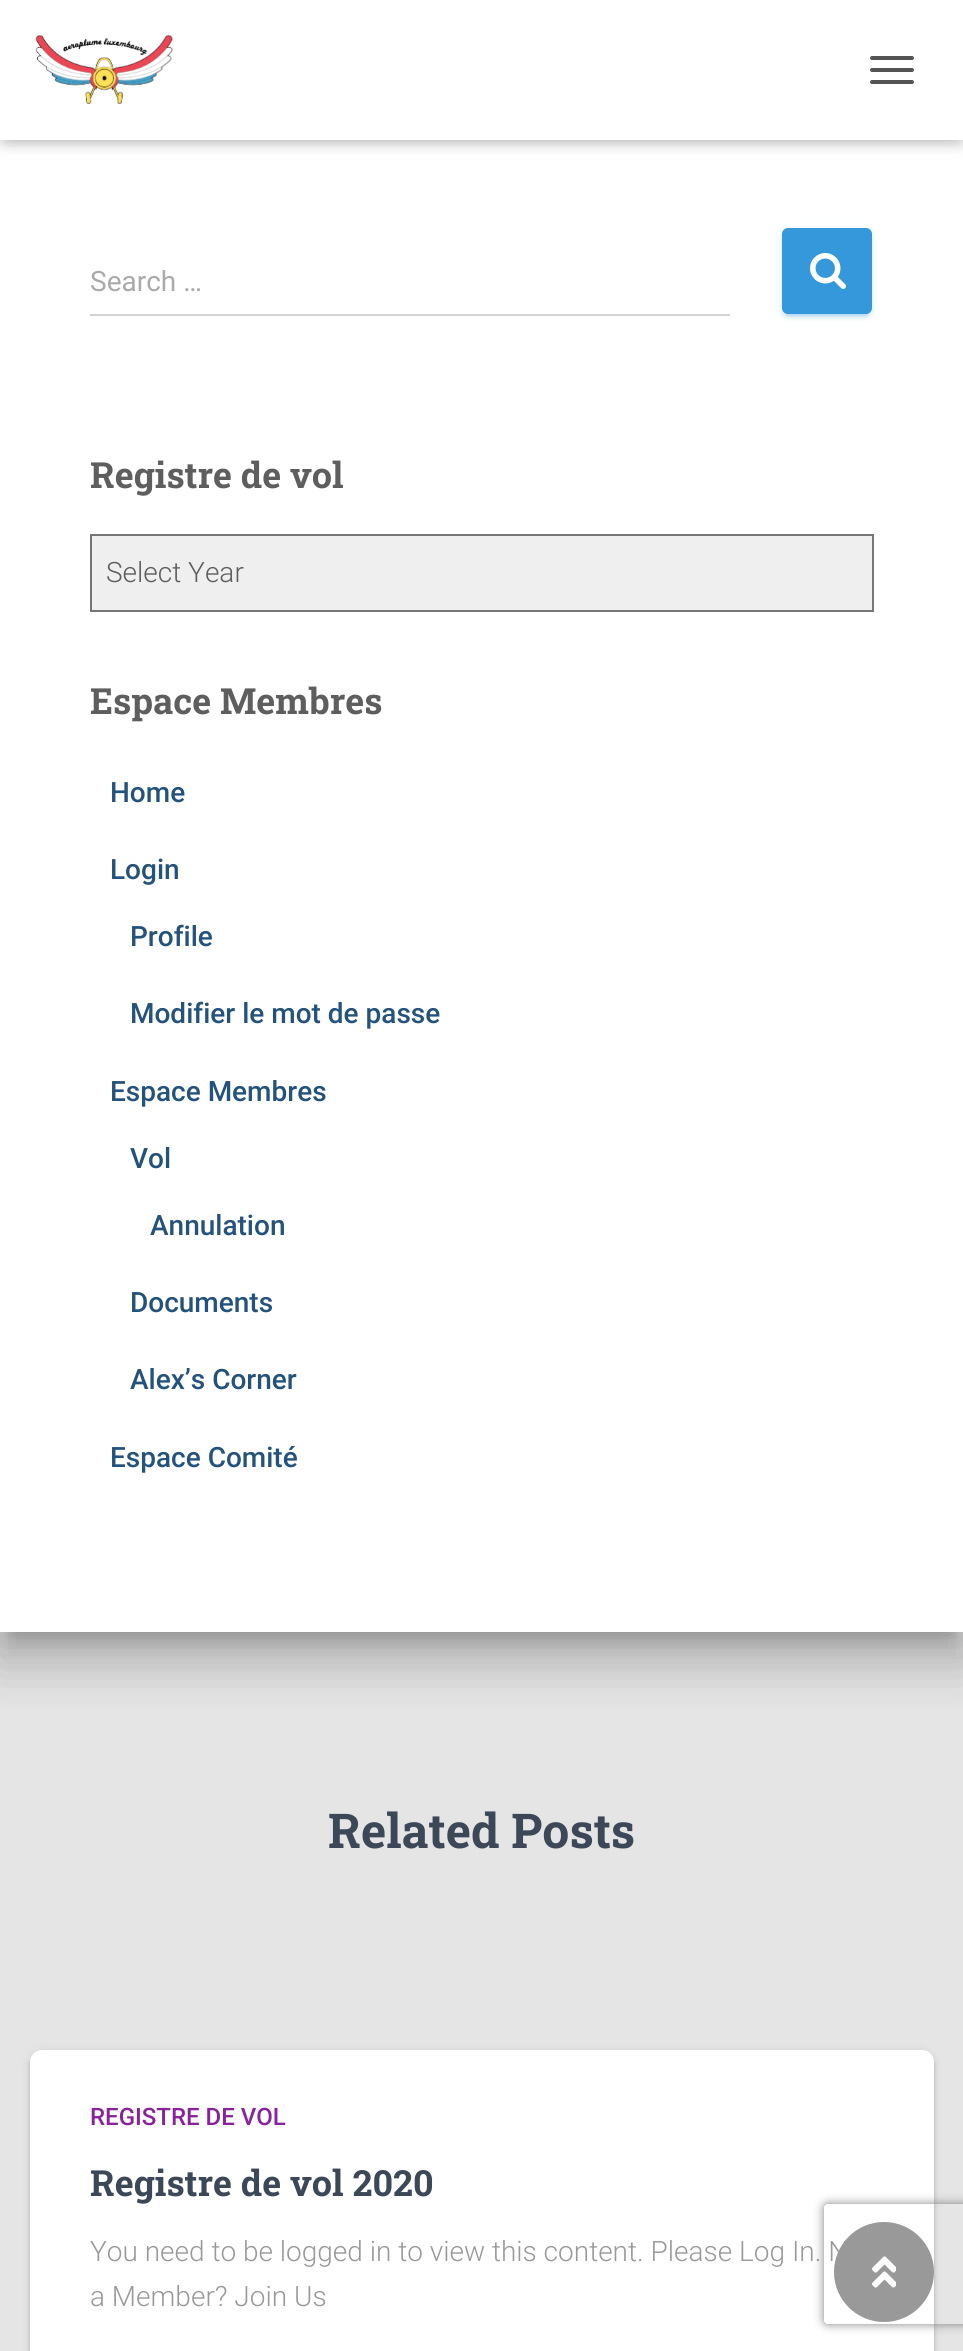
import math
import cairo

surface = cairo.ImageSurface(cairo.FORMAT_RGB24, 963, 2351)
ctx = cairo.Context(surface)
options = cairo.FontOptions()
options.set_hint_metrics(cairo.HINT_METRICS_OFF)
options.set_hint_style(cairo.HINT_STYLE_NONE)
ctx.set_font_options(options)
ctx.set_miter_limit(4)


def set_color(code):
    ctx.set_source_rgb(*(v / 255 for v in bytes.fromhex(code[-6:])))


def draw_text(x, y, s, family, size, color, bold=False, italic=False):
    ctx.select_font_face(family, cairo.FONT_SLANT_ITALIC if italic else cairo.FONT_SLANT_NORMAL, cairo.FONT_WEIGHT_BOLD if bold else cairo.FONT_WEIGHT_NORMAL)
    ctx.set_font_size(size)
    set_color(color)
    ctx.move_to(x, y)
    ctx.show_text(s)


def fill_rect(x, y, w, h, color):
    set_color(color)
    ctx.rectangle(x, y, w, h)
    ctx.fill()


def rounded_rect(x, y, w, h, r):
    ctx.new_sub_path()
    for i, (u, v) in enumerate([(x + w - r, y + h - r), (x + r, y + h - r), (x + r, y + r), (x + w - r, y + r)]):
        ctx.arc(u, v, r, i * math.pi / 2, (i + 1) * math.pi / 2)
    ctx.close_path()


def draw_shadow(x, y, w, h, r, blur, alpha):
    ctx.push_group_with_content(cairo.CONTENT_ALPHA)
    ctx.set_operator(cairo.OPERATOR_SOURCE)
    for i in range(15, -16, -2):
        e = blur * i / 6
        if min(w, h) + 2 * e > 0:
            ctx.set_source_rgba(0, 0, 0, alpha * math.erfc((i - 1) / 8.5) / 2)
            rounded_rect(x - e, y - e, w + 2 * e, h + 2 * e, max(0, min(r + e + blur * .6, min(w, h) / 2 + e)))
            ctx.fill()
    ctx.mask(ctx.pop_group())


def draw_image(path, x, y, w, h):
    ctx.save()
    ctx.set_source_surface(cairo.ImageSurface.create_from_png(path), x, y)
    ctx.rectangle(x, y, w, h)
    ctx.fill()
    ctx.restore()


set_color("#e5e5e5")
ctx.paint()
set_color("#000000")
draw_shadow(10, -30, 944, 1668, 0, 10, 0.2)
draw_shadow(-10, -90, 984, 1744, 0, 30, 0.12)
draw_shadow(-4, -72, 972, 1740, 0, 24, 0.14)
fill_rect(0, 140, 963, 1492, "#ffffff")
set_color("#000000")
draw_shadow(4, 12, 956, 132, 0, 5, 0.1)
draw_shadow(0, 2, 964, 140, 0, 10, 0.12)
draw_shadow(12, 14, 940, 116, 0, 10, 0.42)
fill_rect(0, 0, 963, 140, "#ffffff")
draw_image("assets/img1.png", 35, 35, 138, 69)
set_color("#555555")
rounded_rect(870, 56, 44, 4, 2)
ctx.fill()
rounded_rect(870, 68, 44, 4, 2)
ctx.fill()
rounded_rect(870, 80, 44, 4, 2)
ctx.fill()
draw_text(90, 291, "Search …", "Roboto", 28, "#aaaaaa")
fill_rect(90, 314, 640, 2, "#d2d2d2")
set_color("#3498db")
draw_shadow(782, 230, 90, 86, 6, 5, 0.12)
draw_shadow(786, 238, 82, 78, 2, 1, 0.2)
draw_shadow(782, 232, 90, 86, 6, 2, 0.14)
set_color("#3498db")
rounded_rect(782, 228, 90, 86, 6)
ctx.fill()
draw_image("assets/img2.png", 810, 253, 36, 36)
draw_text(90, 488, "Registre de vol", "Roboto Slab", 36, "#5e5e5e", bold=True)
set_color("#efefef")
ctx.rectangle(91, 535, 782, 76)
ctx.fill_preserve()
set_color("#767676")
ctx.stroke()
draw_text(106, 582, "Select Year", "Roboto Light", 28, "#5e5e5e")
draw_text(90, 714, "Espace Membres", "Roboto Slab", 36, "#5e5e5e", bold=True)
draw_text(110, 802, "Home", "Roboto Medium", 28, "#23527c")
draw_text(110, 879, "Login", "Roboto Medium", 28, "#23527c")
draw_text(130, 946, "Profile", "Roboto Medium", 28, "#23527c")
draw_text(130, 1023, "Modifier le mot de passe", "Roboto Medium", 28, "#23527c")
draw_text(110, 1101, "Espace Membres", "Roboto Medium", 28, "#23527c")
draw_text(130, 1168, "Vol", "Roboto Medium", 28, "#23527c")
draw_text(150, 1235, "Annulation", "Roboto Medium", 28, "#23527c")
draw_text(130, 1312, "Documents", "Roboto Medium", 28, "#23527c")
draw_text(130, 1389, "Alex’s Corner", "Roboto Medium", 28, "#23527c")
draw_text(110, 1467, "Espace Comité", "Roboto Medium", 28, "#23527c")
draw_text(328, 1848, "Related Posts", "Roboto Slab", 48, "#3c4858", bold=True)
set_color("#000000")
draw_shadow(30, 2052, 904, 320, 12, 5, 0.12)
draw_shadow(30, 2054, 904, 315, 12, 2, 0.14)
set_color("#ffffff")
rounded_rect(30, 2050, 904, 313, 12)
ctx.fill()
draw_text(90, 2125, "REGISTRE DE VOL", "Roboto Medium", 24, "#89229b")
draw_text(90, 2196, "Registre de vol 2020", "Roboto Slab", 36, "#3c4858", bold=True)
draw_text(90, 2261, "You need to be logged in to view this content. Please Log In. N", "Roboto Light", 28, "#999999")
draw_text(90, 2306, "a Member? Join Us", "Roboto Light", 28, "#999999")
ctx.save()
ctx.set_fill_rule(cairo.FILL_RULE_EVEN_ODD)
ctx.new_path()
ctx.move_to(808, 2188)
ctx.line_to(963, 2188)
ctx.line_to(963, 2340)
ctx.line_to(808, 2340)
ctx.close_path()
ctx.move_to(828, 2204)
ctx.line_to(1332, 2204)
ctx.curve_to(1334, 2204, 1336, 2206, 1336, 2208)
ctx.line_to(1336, 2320)
ctx.curve_to(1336, 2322, 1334, 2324, 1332, 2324)
ctx.line_to(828, 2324)
ctx.curve_to(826, 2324, 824, 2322, 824, 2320)
ctx.line_to(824, 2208)
ctx.curve_to(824, 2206, 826, 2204, 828, 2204)
ctx.close_path()
ctx.clip()
set_color("#808080")
draw_shadow(824, 2204, 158, 120, 4, 5, 1)
ctx.restore()
ctx.arc(884, 2272, 50, 0, 2 * math.pi)
ctx.fill()
draw_image("assets/img3.png", 872, 2256, 24, 32)
surface.write_to_png("output.png")
